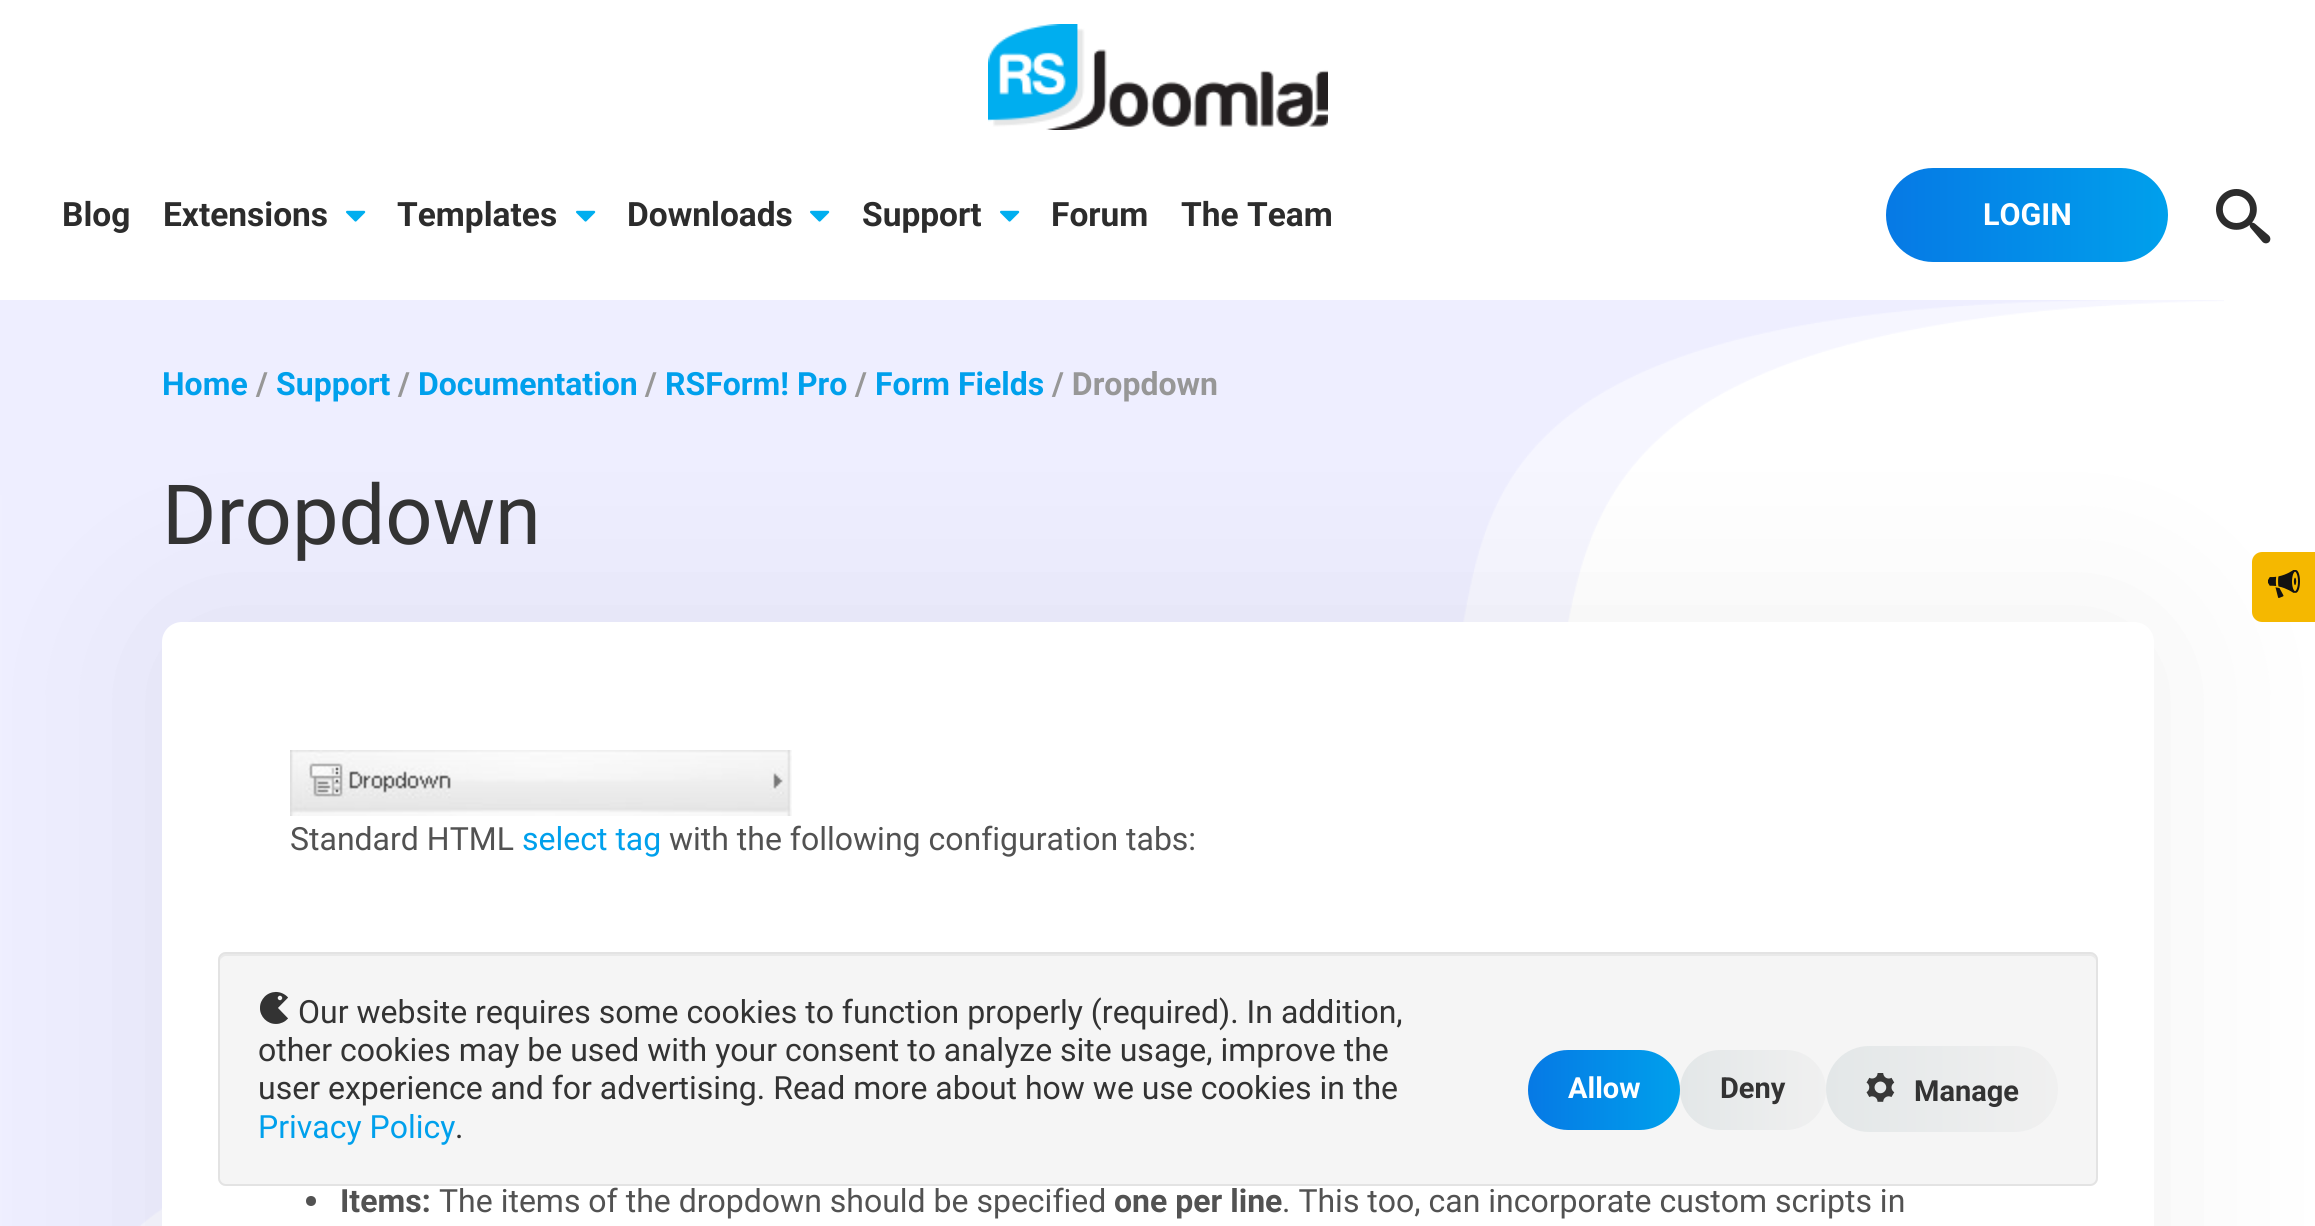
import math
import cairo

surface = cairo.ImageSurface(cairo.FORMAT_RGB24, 2315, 1226)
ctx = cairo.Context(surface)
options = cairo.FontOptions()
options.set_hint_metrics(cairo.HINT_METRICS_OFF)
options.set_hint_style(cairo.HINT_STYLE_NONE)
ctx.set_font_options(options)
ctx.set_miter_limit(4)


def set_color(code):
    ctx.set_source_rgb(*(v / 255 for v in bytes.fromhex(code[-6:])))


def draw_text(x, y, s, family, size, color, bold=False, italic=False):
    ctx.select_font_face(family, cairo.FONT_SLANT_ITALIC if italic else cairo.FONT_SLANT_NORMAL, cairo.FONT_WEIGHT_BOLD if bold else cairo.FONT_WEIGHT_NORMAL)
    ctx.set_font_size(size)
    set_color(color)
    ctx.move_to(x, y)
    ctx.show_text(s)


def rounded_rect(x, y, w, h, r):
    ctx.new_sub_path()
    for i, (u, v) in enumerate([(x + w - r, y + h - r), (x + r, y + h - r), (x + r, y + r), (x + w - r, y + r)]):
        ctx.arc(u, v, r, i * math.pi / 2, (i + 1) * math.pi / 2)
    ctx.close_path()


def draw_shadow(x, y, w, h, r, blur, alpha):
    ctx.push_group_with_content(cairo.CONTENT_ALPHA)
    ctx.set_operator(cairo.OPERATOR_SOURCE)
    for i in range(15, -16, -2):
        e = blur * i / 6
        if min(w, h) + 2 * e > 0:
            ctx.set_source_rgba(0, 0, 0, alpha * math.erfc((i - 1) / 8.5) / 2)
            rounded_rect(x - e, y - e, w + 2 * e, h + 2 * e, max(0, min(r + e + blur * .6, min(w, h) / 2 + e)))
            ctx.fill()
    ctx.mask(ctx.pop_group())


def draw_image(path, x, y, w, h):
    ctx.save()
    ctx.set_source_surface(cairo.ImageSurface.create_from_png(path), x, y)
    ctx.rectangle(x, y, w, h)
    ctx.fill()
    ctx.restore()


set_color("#ffffff")
ctx.paint()
draw_image("assets/img1.png", 0, 300, 2224, 926)
draw_image("assets/img2.png", 988, 24, 340, 106)
draw_text(62, 226, "Blog", "Roboto", 33.5, "#2c2c2c", bold=True)
draw_text(163, 226, "Extensions", "Roboto", 33.5, "#2c2c2c", bold=True)
draw_image("assets/img3.png", 346, 210, 20, 12)
draw_text(397, 226, "Templates", "Roboto", 33.5, "#2c2c2c", bold=True)
draw_image("assets/img3.png", 576, 210, 20, 12)
draw_text(627, 226, "Downloads", "Roboto", 33.5, "#2c2c2c", bold=True)
draw_image("assets/img3.png", 810, 210, 20, 12)
draw_text(862, 226, "Support", "Roboto", 33.5, "#2c2c2c", bold=True)
draw_image("assets/img3.png", 1000, 210, 20, 12)
draw_text(1051, 226, "Forum", "Roboto", 33.5, "#2c2c2c", bold=True)
draw_text(1181, 226, "The Team", "Roboto", 33.5, "#2c2c2c", bold=True)
gradient = cairo.LinearGradient(1886, 215, 2168, 215)
gradient.add_color_stop_rgba(0, 0.024, 0.475, 0.898, 1)
gradient.add_color_stop_rgba(1, 0, 0.627, 0.925, 1)
ctx.set_source(gradient)
rounded_rect(1886, 168, 282, 94, 47)
ctx.fill()
draw_text(1983, 225, "LOGIN", "Roboto", 30.5, "#ffffff", bold=True)
draw_image("assets/img4.png", 2216, 189, 55, 55)
set_color("#000000")
draw_shadow(162, 622, 1992, 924, 20, 100, 0.06)
draw_text(162, 395, "Home", "Roboto", 32, "#00a0ec", bold=True)
draw_text(256, 395, "/", "Roboto", 32, "#979797", bold=True)
draw_text(276, 395, "Support", "Roboto", 32, "#00a0ec", bold=True)
draw_text(398, 395, "/", "Roboto", 32, "#979797", bold=True)
draw_text(418, 395, "Documentation", "Roboto", 32, "#00a0ec", bold=True)
draw_text(645, 395, "/", "Roboto", 32, "#979797", bold=True)
draw_text(665, 395, "RSForm! Pro", "Roboto", 32, "#00a0ec", bold=True)
draw_text(855, 395, "/", "Roboto", 32, "#979797", bold=True)
draw_text(875, 395, "Form Fields", "Roboto", 32, "#00a0ec", bold=True)
draw_text(1052, 395, "/ Dropdown", "Roboto", 32, "#979797", bold=True)
draw_text(162, 544, "Dropdown", "Roboto", 83, "#333333")
set_color("#ffffff")
rounded_rect(162, 622, 1992, 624, 20)
ctx.fill()
draw_image("assets/img5.png", 290, 750, 502, 66)
draw_text(290, 850, "Standard HTML", "Roboto", 32, "#525252")
draw_text(522, 850, "select tag", "Roboto", 32, "#00a0ec")
draw_text(669, 850, "with the following configuration tabs:", "Roboto", 32, "#525252")
ctx.new_path()
ctx.arc(311, 1201, 5, 0, 2 * math.pi)
ctx.fill()
draw_text(340, 1212, "Items:", "Roboto", 32, "#525252", bold=True)
draw_text(439, 1212, "The items of the dropdown should be specified", "Roboto", 32, "#525252")
draw_text(1114, 1212, "one per line", "Roboto", 32, "#525252", bold=True)
draw_text(1282, 1212, ". This too, can incorporate custom scripts in", "Roboto", 32, "#525252")
set_color("#f5b800")
ctx.new_path()
ctx.move_to(2262, 552)
ctx.line_to(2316, 552)
ctx.line_to(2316, 622)
ctx.line_to(2262, 622)
ctx.curve_to(2256.5, 622, 2252, 617.5, 2252, 612)
ctx.line_to(2252, 562)
ctx.curve_to(2252, 556.5, 2256.5, 552, 2262, 552)
ctx.close_path()
ctx.fill()
draw_image("assets/img6.png", 2268, 570, 32, 28)
set_color("#f5f5f5")
rounded_rect(218, 952, 1880, 234, 8)
ctx.fill()
set_color("#e9e9e9")
ctx.new_path()
ctx.move_to(226, 956)
ctx.line_to(2090, 956)
ctx.curve_to(2093, 956, 2096, 959, 2096, 962)
ctx.curve_to(2096, 958, 2095, 954, 2090, 954)
ctx.line_to(226, 954)
ctx.curve_to(221, 954, 220, 958, 220, 962)
ctx.curve_to(220, 959, 223, 956, 226, 956)
ctx.close_path()
ctx.fill()
rounded_rect(219, 953, 1878, 232, 7)
set_color("#e3e3e3")
ctx.stroke()
draw_image("assets/img7.png", 260, 991, 28, 33)
draw_text(298, 1023, "Our website requires some cookies to function properly (required). In addition,", "Roboto", 32, "#333333")
draw_text(258, 1061, "other cookies may be used with your consent to analyze site usage, improve the", "Roboto", 32, "#333333")
draw_text(258, 1099, "user experience and for advertising. Read more about how we use cookies in the", "Roboto", 32, "#333333")
draw_text(258, 1138, "Privacy Policy", "Roboto", 32, "#00a0ec")
draw_text(455, 1138, ".", "Roboto", 32, "#333333")
gradient = cairo.LinearGradient(1528, 1090, 1680, 1090)
gradient.add_color_stop_rgba(0, 0.024, 0.475, 0.898, 1)
gradient.add_color_stop_rgba(1, 0, 0.627, 0.925, 1)
ctx.set_source(gradient)
rounded_rect(1528, 1050, 152, 80, 40)
ctx.fill()
draw_text(1568, 1098, "Allow", "Roboto", 29, "#ffffff", bold=True)
gradient = cairo.LinearGradient(1680, 1090, 1826, 1090)
gradient.add_color_stop_rgba(0, 0.89, 0.906, 0.91, 1)
gradient.add_color_stop_rgba(1, 0.941, 0.941, 0.941, 1)
ctx.set_source(gradient)
rounded_rect(1680, 1050, 146, 80, 40)
ctx.fill()
draw_text(1720, 1098, "Deny", "Roboto", 29, "#333333", bold=True)
gradient = cairo.LinearGradient(1826, 1089, 2058, 1089)
gradient.add_color_stop_rgba(0, 0.89, 0.906, 0.91, 1)
gradient.add_color_stop_rgba(1, 0.941, 0.941, 0.941, 1)
ctx.set_source(gradient)
rounded_rect(1826, 1046, 232, 86, 43)
ctx.fill()
draw_image("assets/img8.png", 1866, 1073, 29, 29)
draw_text(1914, 1101, "Manage", "Roboto", 29, "#333333", bold=True)
surface.write_to_png("output.png")
